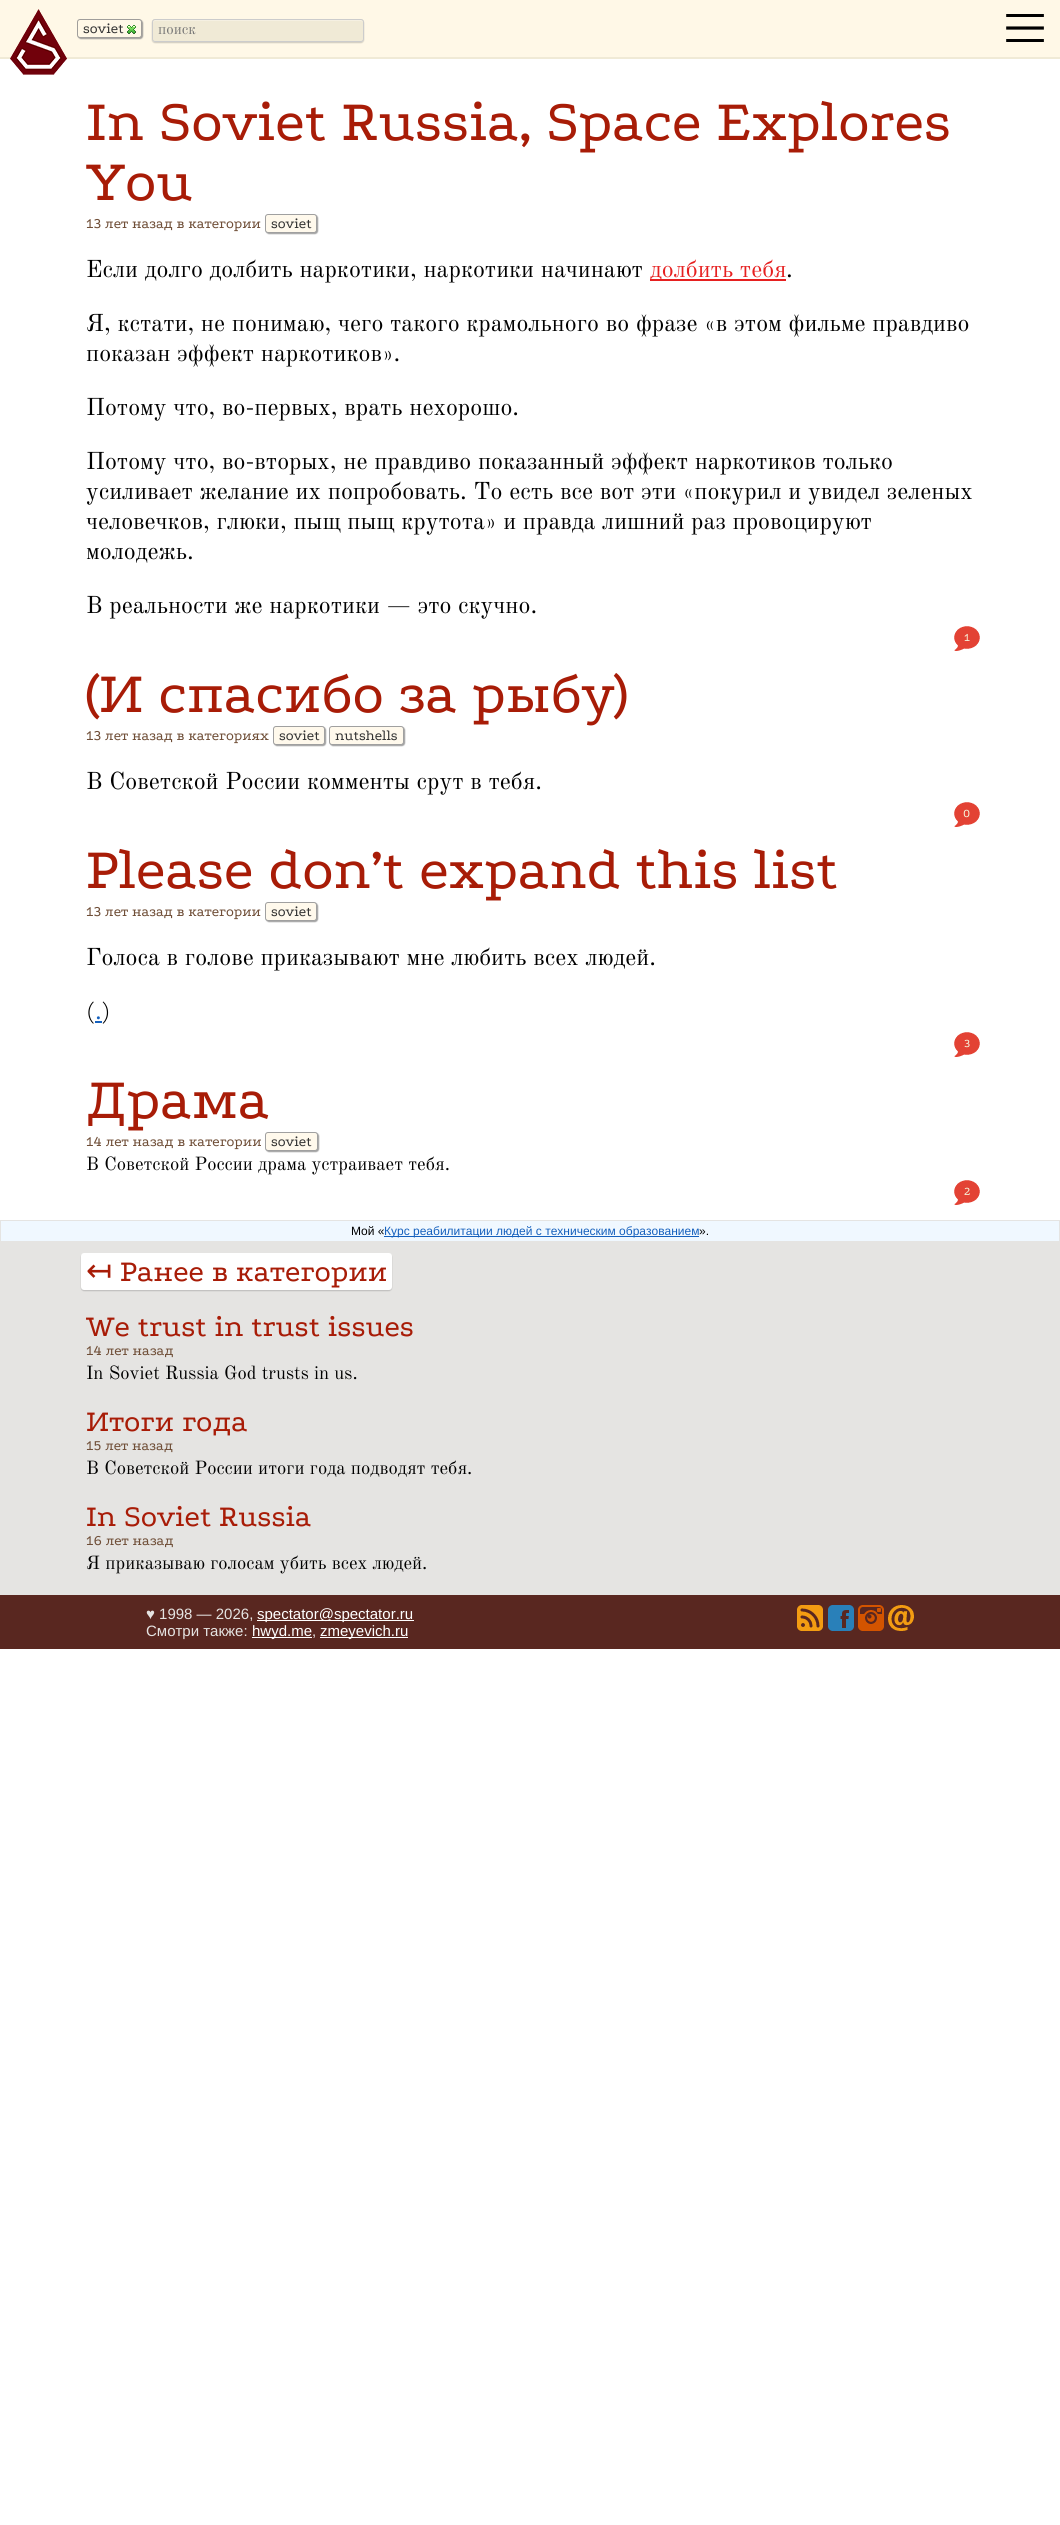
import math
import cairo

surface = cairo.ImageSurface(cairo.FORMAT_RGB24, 1060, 2525)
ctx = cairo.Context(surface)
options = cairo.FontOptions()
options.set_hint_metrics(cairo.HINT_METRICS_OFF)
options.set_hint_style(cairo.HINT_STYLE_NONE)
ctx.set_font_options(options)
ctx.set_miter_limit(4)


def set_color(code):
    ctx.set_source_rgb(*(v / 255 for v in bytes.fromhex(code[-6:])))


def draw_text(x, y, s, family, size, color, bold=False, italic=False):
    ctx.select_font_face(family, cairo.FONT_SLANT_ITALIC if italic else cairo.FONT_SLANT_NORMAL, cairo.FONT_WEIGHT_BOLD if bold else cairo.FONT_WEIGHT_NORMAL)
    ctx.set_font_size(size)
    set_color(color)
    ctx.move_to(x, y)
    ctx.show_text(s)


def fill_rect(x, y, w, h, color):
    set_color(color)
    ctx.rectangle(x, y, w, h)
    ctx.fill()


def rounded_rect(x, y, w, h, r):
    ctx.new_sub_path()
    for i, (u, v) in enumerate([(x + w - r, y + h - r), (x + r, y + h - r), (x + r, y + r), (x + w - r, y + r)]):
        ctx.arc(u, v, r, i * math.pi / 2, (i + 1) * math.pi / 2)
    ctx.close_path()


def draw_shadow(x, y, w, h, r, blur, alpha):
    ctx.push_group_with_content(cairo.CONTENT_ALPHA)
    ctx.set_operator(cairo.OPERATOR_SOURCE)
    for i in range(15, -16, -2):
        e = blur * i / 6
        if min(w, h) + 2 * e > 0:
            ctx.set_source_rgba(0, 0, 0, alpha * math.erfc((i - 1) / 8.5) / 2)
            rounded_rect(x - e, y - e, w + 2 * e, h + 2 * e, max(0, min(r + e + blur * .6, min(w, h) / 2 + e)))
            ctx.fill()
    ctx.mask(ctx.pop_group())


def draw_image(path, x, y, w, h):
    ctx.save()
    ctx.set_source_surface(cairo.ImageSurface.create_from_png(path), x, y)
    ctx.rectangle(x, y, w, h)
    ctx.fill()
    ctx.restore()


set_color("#ffffff")
ctx.paint()
fill_rect(0, 0, 1060, 57, "#fff8e7")
fill_rect(0, 57, 1060, 2, "#f0ead6")
draw_image("assets/img1.png", 10, 9, 57, 66)
set_color("#a09e9b")
draw_shadow(78, 20, 65, 19, 3, 0.5, 1)
set_color("#fff8e7")
rounded_rect(77.5, 19.5, 64, 18, 2.5)
ctx.fill_preserve()
set_color("#a09e9b")
ctx.set_line_width(1)
ctx.stroke()
draw_text(83, 33, "soviet", "Podkova", 15, "#333333")
draw_image("assets/img2.png", 127, 25, 9, 9)
set_color("#646464")
draw_shadow(152, 20, 212, 23, 3, 0.5, 0.3)
set_color("#f0ead6")
rounded_rect(152, 19, 212, 23, 3)
ctx.fill()
set_color("#f5f0e2")
ctx.new_path()
ctx.move_to(155, 21)
ctx.line_to(361, 21)
ctx.line_to(363, 22)
ctx.line_to(363, 23)
ctx.curve_to(363, 22, 363, 20, 361, 20)
ctx.line_to(155, 20)
ctx.curve_to(153, 20, 153, 22, 153, 23)
ctx.curve_to(153, 22, 154, 21, 155, 21)
ctx.close_path()
ctx.fill()
rounded_rect(152.5, 19.5, 211, 22, 2.5)
set_color("#cccccc")
ctx.stroke()
draw_text(158, 34, "поиск", "Old Standard TT", 15, "#757575")
draw_image("assets/img3.png", 1006, 14, 38, 28)
draw_text(86, 140, "In Soviet Russia, Space Explores", "Podkova", 60, "#a81c07")
draw_text(86, 200, "You", "Podkova", 60, "#a81c07")
draw_text(86, 228, "13 лет назад в категории", "Podkova", 15, "#6f4e37")
set_color("#a0a0a0")
draw_shadow(266, 215, 52, 19, 3, 0.5, 1)
set_color("#fff9ec")
rounded_rect(265.5, 214.5, 51, 18, 2.5)
ctx.fill_preserve()
set_color("#a0a0a0")
ctx.stroke()
draw_text(271, 228, "soviet", "Podkova", 15, "#333333")
draw_text(86, 277, "Если долго долбить наркотики, наркотики начинают", "Old Standard TT", 24, "#000000")
fill_rect(650, 279, 136, 2, "#e62020")
draw_text(650, 277, "долбить тебя", "Old Standard TT", 24, "#e62020")
draw_text(786, 277, ".", "Old Standard TT", 24, "#000000")
draw_text(86, 331, "Я, кстати, не понимаю, чего такого крамольного во фразе «в этом фильме правдиво", "Old Standard TT", 24, "#000000")
draw_text(86, 361, "показан эффект наркотиков».", "Old Standard TT", 24, "#000000")
draw_text(86, 415, "Потому что, во-первых, врать нехорошо.", "Old Standard TT", 24, "#000000")
draw_text(86, 469, "Потому что, во-вторых, не правдиво показанный эффект наркотиков только", "Old Standard TT", 24, "#000000")
draw_text(86, 499, "усиливает желание их попробовать. То есть все вот эти «покурил и увидел зеленых", "Old Standard TT", 24, "#000000")
draw_text(86, 529, "человечков, глюки, пыщ пыщ крутота» и правда лишний раз провоцируют", "Old Standard TT", 24, "#000000")
draw_text(86, 559, "молодежь.", "Old Standard TT", 24, "#000000")
draw_text(86, 613, "В реальности же наркотики — это скучно.", "Old Standard TT", 24, "#000000")
draw_image("assets/img4.png", 954, 626, 26, 25)
draw_text(964, 641, "1", "Podkova", 12, "#f5f5dc")
draw_text(86, 712, "(И спасибо за рыбу)", "Podkova", 60, "#a81c07")
draw_text(86, 740, "13 лет назад в категориях", "Podkova", 15, "#6f4e37")
set_color("#a0a0a0")
draw_shadow(274, 727, 52, 19, 3, 0.5, 1)
set_color("#fff9ec")
rounded_rect(273.5, 726.5, 51, 18, 2.5)
ctx.fill_preserve()
set_color("#a0a0a0")
ctx.stroke()
draw_text(279, 740, "soviet", "Podkova", 15, "#333333")
set_color("#a0a0a0")
draw_shadow(330, 727, 75, 19, 3, 0.5, 1)
set_color("#fff9ec")
rounded_rect(329.5, 726.5, 74, 18, 2.5)
ctx.fill_preserve()
set_color("#a0a0a0")
ctx.stroke()
draw_text(335, 740, "nutshells", "Podkova", 15, "#333333")
draw_text(86, 789, "В Советской России комменты срут в тебя.", "Old Standard TT", 24, "#000000")
draw_image("assets/img4.png", 954, 802, 26, 25)
draw_text(963, 817, "0", "Podkova", 12, "#f5f5dc")
draw_text(86, 888, "Please don’t expand this list", "Podkova", 60, "#a81c07")
draw_text(86, 916, "13 лет назад в категории", "Podkova", 15, "#6f4e37")
set_color("#a0a0a0")
draw_shadow(266, 903, 52, 19, 3, 0.5, 1)
set_color("#fff9ec")
rounded_rect(265.5, 902.5, 51, 18, 2.5)
ctx.fill_preserve()
set_color("#a0a0a0")
ctx.stroke()
draw_text(271, 916, "soviet", "Podkova", 15, "#333333")
draw_text(86, 965, "Голоса в голове приказывают мне любить всех людей.", "Old Standard TT", 24, "#000000")
draw_text(86, 1019, "( )", "Old Standard TT", 24, "#000000")
draw_text(95, 1019, ".", "Old Standard TT", 24, "#1560bd")
fill_rect(95, 1021, 7, 2, "#1560bd")
draw_image("assets/img4.png", 954, 1032, 26, 25)
draw_text(964, 1047, "3", "Podkova", 12, "#f5f5dc")
draw_text(86, 1118, "Драма", "Podkova", 60, "#a81c07")
draw_text(86, 1146, "14 лет назад в категории", "Podkova", 15, "#6f4e37")
set_color("#a0a0a0")
draw_shadow(266, 1133, 53, 19, 3, 0.5, 1)
set_color("#fff9ec")
rounded_rect(265.5, 1132.5, 52, 18, 2.5)
ctx.fill_preserve()
set_color("#a0a0a0")
ctx.stroke()
draw_text(271, 1146, "soviet", "Podkova", 15, "#333333")
draw_text(86, 1170, "В Советской России драма устраивает тебя.", "Old Standard TT", 18.7, "#000000")
draw_image("assets/img4.png", 954, 1180, 26, 25)
draw_text(964, 1195, "2", "Podkova", 12, "#f5f5dc")
set_color("#f0f8ff")
ctx.rectangle(0.5, 1220.5, 1059, 21)
ctx.fill_preserve()
set_color("#e5e4e2")
ctx.stroke()
draw_text(351, 1235, "Мой «", "Liberation Sans", 12, "#000000")
fill_rect(384, 1236, 315, 1, "#1560bd")
draw_text(384, 1235, "Курс реабилитации людей с техническим образованием", "Liberation Sans", 12, "#1560bd")
draw_text(699, 1235, "».", "Liberation Sans", 12, "#000000")
fill_rect(0, 1242, 1060, 353, "#e5e4e2")
set_color("#646464")
draw_shadow(81, 1254, 311, 37, 3, 0.5, 0.3)
set_color("#ffffff")
rounded_rect(81, 1253, 311, 37, 3)
ctx.fill()
draw_text(86, 1281, "↤", "DejaVu Sans", 31.25, "#a81c07")
draw_text(120, 1281, "Ранее в категории", "Podkova", 31.25, "#a81c07")
draw_text(86, 1336, "We trust in trust issues", "Podkova", 31.25, "#a81c07")
draw_text(86, 1355, "14 лет назад", "Podkova", 15, "#6f4e37")
draw_text(86, 1379, "In Soviet Russia God trusts in us.", "Old Standard TT", 18.7, "#000000")
draw_text(86, 1431, "Итоги года", "Podkova", 31.25, "#a81c07")
draw_text(86, 1450, "15 лет назад", "Podkova", 15, "#6f4e37")
draw_text(86, 1474, "В Советской России итоги года подводят тебя.", "Old Standard TT", 18.7, "#000000")
draw_text(86, 1526, "In Soviet Russia", "Podkova", 31.25, "#a81c07")
draw_text(86, 1545, "16 лет назад", "Podkova", 15, "#6f4e37")
draw_text(86, 1569, "Я приказываю голосам убить всех людей.", "Old Standard TT", 18.7, "#000000")
fill_rect(0, 1595, 1060, 54, "#592720")
draw_text(146, 1619, "♥ 1998 — 2026,", "Liberation Sans", 15, "#e5e4e2")
fill_rect(257, 1620, 157, 1, "#ffffff")
draw_text(257, 1619, "spectator@spectator.ru", "Liberation Sans", 15, "#ffffff")
draw_text(146, 1636, "Смотри также:", "Liberation Sans", 15, "#e5e4e2")
fill_rect(252, 1637, 60, 1, "#ffffff")
draw_text(252, 1636, "hwyd.me", "Liberation Sans", 15, "#ffffff")
draw_text(312, 1636, ",", "Liberation Sans", 15, "#e5e4e2")
fill_rect(320, 1637, 88, 1, "#ffffff")
draw_text(320, 1636, "zmeyevich.ru", "Liberation Sans", 15, "#ffffff")
draw_image("assets/img5.png", 797, 1605, 26, 26)
draw_image("assets/img6.png", 828, 1605, 26, 26)
draw_image("assets/img7.png", 858, 1605, 26, 26)
draw_image("assets/img8.png", 888, 1605, 26, 26)
surface.write_to_png("output.png")
